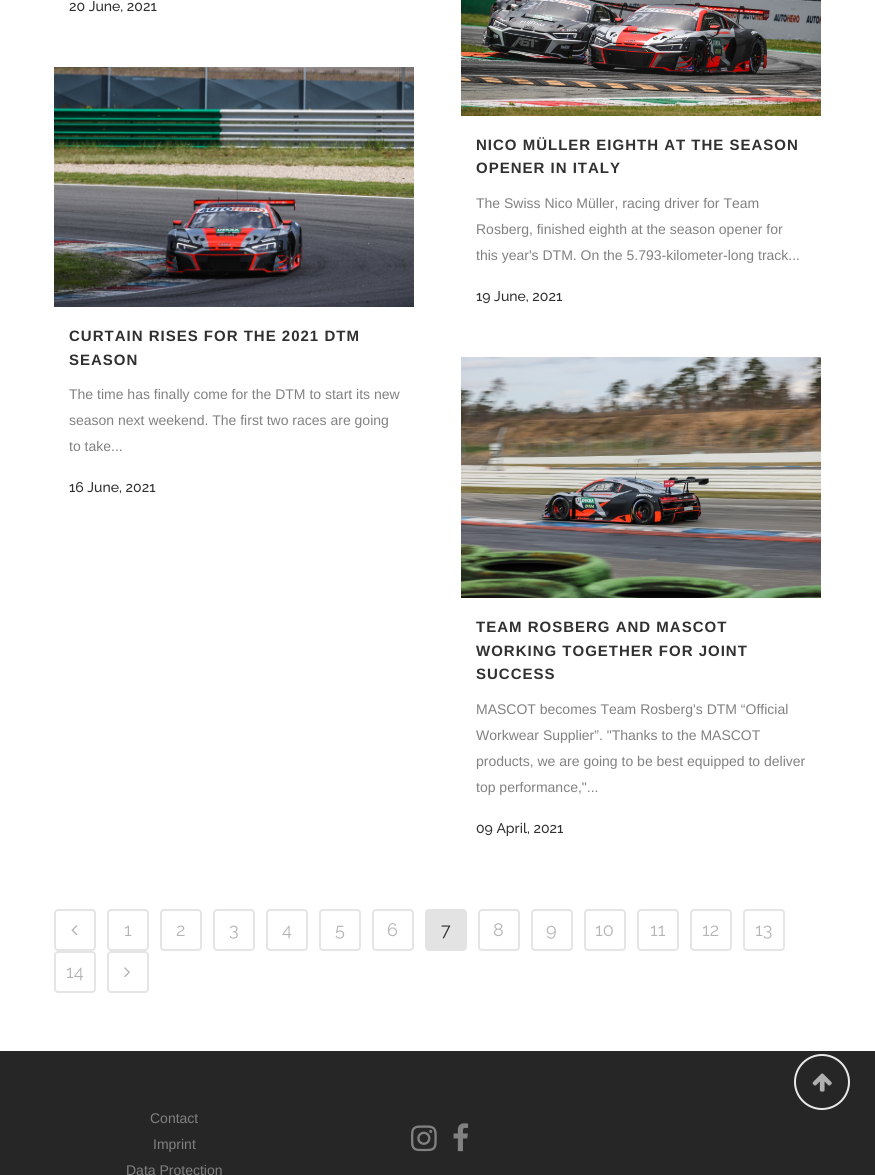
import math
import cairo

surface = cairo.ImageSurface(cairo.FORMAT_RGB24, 875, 1175)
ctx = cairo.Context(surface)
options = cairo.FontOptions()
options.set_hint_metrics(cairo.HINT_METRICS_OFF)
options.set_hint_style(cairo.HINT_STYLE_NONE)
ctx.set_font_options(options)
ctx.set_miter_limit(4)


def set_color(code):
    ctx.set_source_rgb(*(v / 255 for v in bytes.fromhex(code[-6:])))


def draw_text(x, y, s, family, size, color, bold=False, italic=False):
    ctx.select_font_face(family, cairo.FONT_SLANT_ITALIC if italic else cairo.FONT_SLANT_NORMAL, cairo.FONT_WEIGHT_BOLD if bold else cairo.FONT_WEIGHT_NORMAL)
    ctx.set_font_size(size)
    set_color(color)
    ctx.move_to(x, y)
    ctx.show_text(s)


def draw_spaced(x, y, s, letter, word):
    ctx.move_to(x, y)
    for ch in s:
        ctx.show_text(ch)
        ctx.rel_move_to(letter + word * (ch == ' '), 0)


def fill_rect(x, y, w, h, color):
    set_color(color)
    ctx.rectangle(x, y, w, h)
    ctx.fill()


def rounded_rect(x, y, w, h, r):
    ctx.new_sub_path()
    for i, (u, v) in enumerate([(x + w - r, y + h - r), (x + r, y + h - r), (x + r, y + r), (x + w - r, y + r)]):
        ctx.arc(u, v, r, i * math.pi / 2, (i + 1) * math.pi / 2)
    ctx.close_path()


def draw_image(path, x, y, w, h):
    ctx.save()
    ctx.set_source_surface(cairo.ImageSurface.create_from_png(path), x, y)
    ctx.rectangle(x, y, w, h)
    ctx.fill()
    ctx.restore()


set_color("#ffffff")
ctx.paint()
draw_text(69, 11, "20 June, 2021", "Raleway Medium", 14, "#303030")
draw_image("assets/img1.png", 461, 0, 360, 116)
ctx.select_font_face("Liberation Sans", cairo.FONT_SLANT_NORMAL, cairo.FONT_WEIGHT_BOLD)
ctx.set_font_size(15)
draw_spaced(476, 150, "NICO MÜLLER EIGHTH AT THE SEASON", 1, 0)
draw_spaced(476, 173, "OPENER IN ITALY", 1, 0)
draw_text(476, 208, "The Swiss Nico Müller, racing driver for Team", "Liberation Sans", 14, "#818181")
draw_text(476, 234, "Rosberg, finished eighth at the season opener for", "Liberation Sans", 14, "#818181")
draw_text(476, 260, "this year's DTM. On the 5.793-kilometer-long track...", "Liberation Sans", 14, "#818181")
draw_text(476, 301, "19 June, 2021", "Raleway Medium", 14, "#303030")
draw_image("assets/img2.png", 54, 67, 360, 240)
ctx.select_font_face("Liberation Sans", cairo.FONT_SLANT_NORMAL, cairo.FONT_WEIGHT_BOLD)
ctx.set_font_size(15)
draw_spaced(69, 341, "CURTAIN RISES FOR THE 2021 DTM", 1, 0)
draw_spaced(69, 365, "SEASON", 1, 0)
draw_text(69, 399, "The time has finally come for the DTM to start its new", "Liberation Sans", 14, "#818181")
draw_text(69, 425, "season next weekend. The first two races are going", "Liberation Sans", 14, "#818181")
draw_text(69, 451, "to take...", "Liberation Sans", 14, "#818181")
draw_text(69, 492, "16 June, 2021", "Raleway Medium", 14, "#303030")
draw_image("assets/img3.png", 461, 357, 360, 241)
ctx.select_font_face("Liberation Sans", cairo.FONT_SLANT_NORMAL, cairo.FONT_WEIGHT_BOLD)
ctx.set_font_size(15)
draw_spaced(476, 632, "TEAM ROSBERG AND MASCOT", 1, 0)
draw_spaced(476, 656, "WORKING TOGETHER FOR JOINT", 1, 0)
draw_spaced(476, 679, "SUCCESS", 1, 0)
draw_text(476, 714, "MASCOT becomes Team Rosberg's DTM “Official", "Liberation Sans", 14, "#818181")
draw_text(476, 740, "Workwear Supplier”. \"Thanks to the MASCOT", "Liberation Sans", 14, "#818181")
draw_text(476, 766, "products, we are going to be best equipped to deliver", "Liberation Sans", 14, "#818181")
draw_text(476, 792, "top performance,\"...", "Liberation Sans", 14, "#818181")
draw_text(476, 833, "09 April, 2021", "Raleway Medium", 14, "#303030")
rounded_rect(55, 910, 40, 40, 3)
set_color("#e5e5e5")
ctx.stroke()
draw_image("assets/img4.png", 71, 925, 7, 11)
rounded_rect(108, 910, 40, 40, 3)
ctx.stroke()
draw_text(124, 936, "1", "Raleway", 18, "#b4b4b4")
rounded_rect(161, 910, 40, 40, 3)
set_color("#e5e5e5")
ctx.stroke()
draw_text(176, 936, "2", "Raleway", 18, "#b4b4b4")
rounded_rect(214, 910, 40, 40, 3)
set_color("#e5e5e5")
ctx.stroke()
draw_text(229, 936, "3", "Raleway", 18, "#b4b4b4")
rounded_rect(267, 910, 40, 40, 3)
set_color("#e5e5e5")
ctx.stroke()
draw_text(282, 936, "4", "Raleway", 18, "#b4b4b4")
rounded_rect(320, 910, 40, 40, 3)
set_color("#e5e5e5")
ctx.stroke()
draw_text(335, 936, "5", "Raleway", 18, "#b4b4b4")
rounded_rect(373, 910, 40, 40, 3)
set_color("#e5e5e5")
ctx.stroke()
draw_text(387, 936, "6", "Raleway", 18, "#b4b4b4")
set_color("#e3e3e3")
rounded_rect(426, 910, 40, 40, 3)
ctx.fill_preserve()
ctx.stroke()
draw_text(441, 936, "7", "Raleway", 18, "#303030")
rounded_rect(479, 910, 40, 40, 3)
set_color("#e5e5e5")
ctx.stroke()
draw_text(493, 936, "8", "Raleway", 18, "#b4b4b4")
rounded_rect(532, 910, 40, 40, 3)
set_color("#e5e5e5")
ctx.stroke()
draw_text(546, 936, "9", "Raleway", 18, "#b4b4b4")
rounded_rect(585, 910, 40, 40, 3)
set_color("#e5e5e5")
ctx.stroke()
draw_text(595, 936, "10", "Raleway", 18, "#b4b4b4")
rounded_rect(638, 910, 40, 40, 3)
set_color("#e5e5e5")
ctx.stroke()
draw_text(650, 936, "11", "Raleway", 18, "#b4b4b4")
rounded_rect(691, 910, 40, 40, 3)
set_color("#e5e5e5")
ctx.stroke()
draw_text(702, 936, "12", "Raleway", 18, "#b4b4b4")
rounded_rect(744, 910, 40, 40, 3)
set_color("#e5e5e5")
ctx.stroke()
draw_text(755, 936, "13", "Raleway", 18, "#b4b4b4")
rounded_rect(55, 952, 40, 40, 3)
set_color("#e5e5e5")
ctx.stroke()
draw_text(66, 978, "14", "Raleway", 18, "#b4b4b4")
rounded_rect(108, 952, 40, 40, 3)
set_color("#e5e5e5")
ctx.stroke()
draw_image("assets/img5.png", 124, 967, 6, 11)
fill_rect(0, 1051, 875, 124, "#262626")
ctx.arc(822, 1082, 27, 0, 2 * math.pi)
set_color("#e8e8e8")
ctx.stroke()
draw_image("assets/img6.png", 812, 1073, 20, 19)
draw_text(150, 1123, "Contact", "Liberation Sans", 14, "#818181")
draw_text(153, 1149, "Imprint", "Liberation Sans", 14, "#818181")
draw_text(126, 1175, "Data Protection", "Liberation Sans", 14, "#818181")
draw_image("assets/img7.png", 411, 1125, 26, 27)
draw_image("assets/img8.png", 453, 1123, 16, 29)
surface.write_to_png("output.png")
